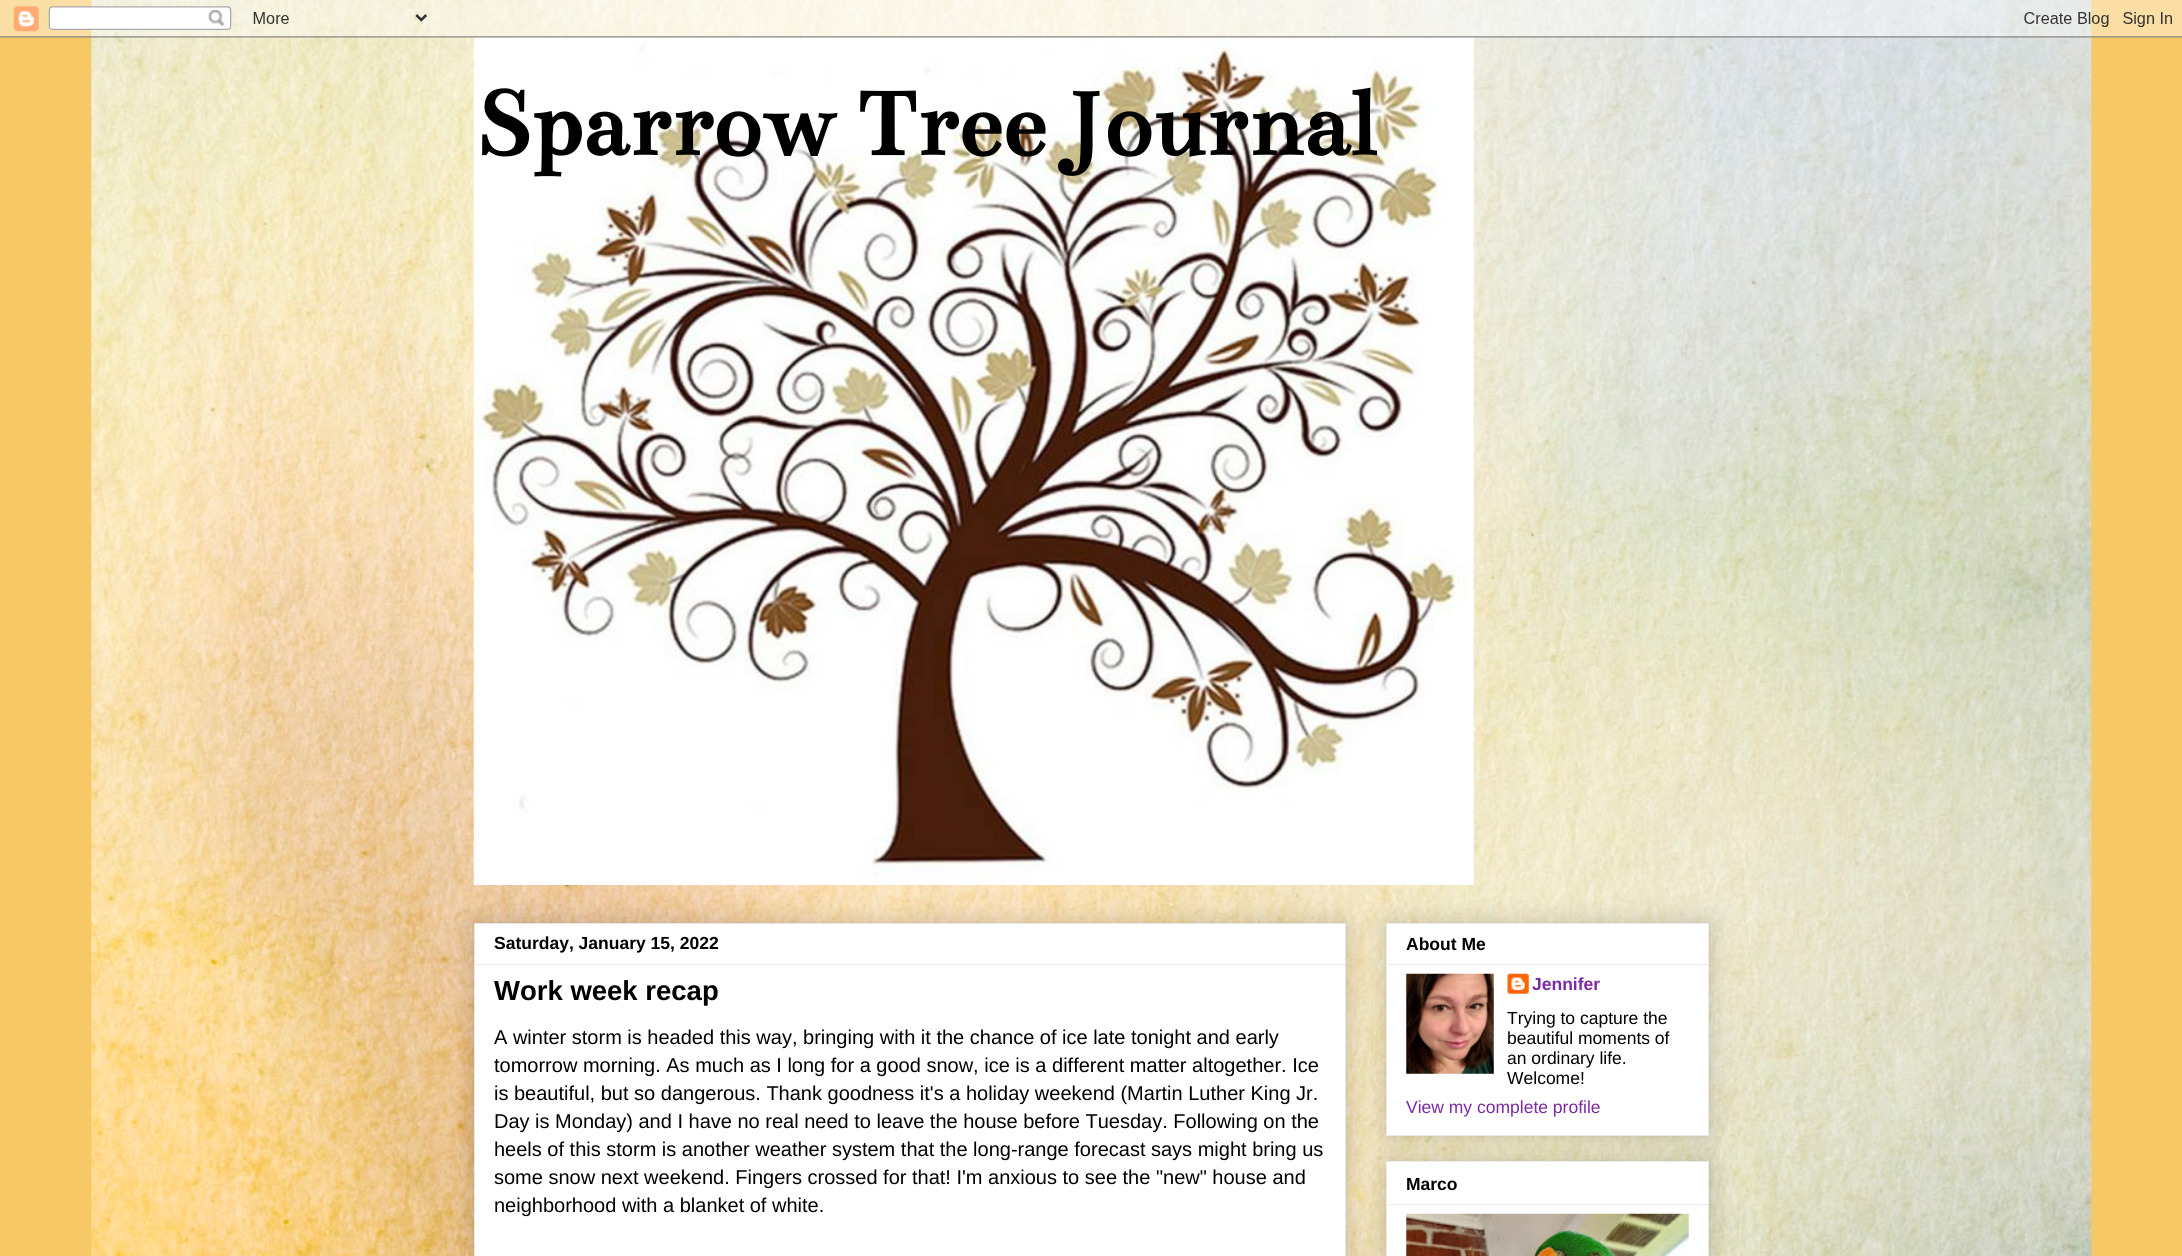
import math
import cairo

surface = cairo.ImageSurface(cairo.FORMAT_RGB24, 2182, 1256)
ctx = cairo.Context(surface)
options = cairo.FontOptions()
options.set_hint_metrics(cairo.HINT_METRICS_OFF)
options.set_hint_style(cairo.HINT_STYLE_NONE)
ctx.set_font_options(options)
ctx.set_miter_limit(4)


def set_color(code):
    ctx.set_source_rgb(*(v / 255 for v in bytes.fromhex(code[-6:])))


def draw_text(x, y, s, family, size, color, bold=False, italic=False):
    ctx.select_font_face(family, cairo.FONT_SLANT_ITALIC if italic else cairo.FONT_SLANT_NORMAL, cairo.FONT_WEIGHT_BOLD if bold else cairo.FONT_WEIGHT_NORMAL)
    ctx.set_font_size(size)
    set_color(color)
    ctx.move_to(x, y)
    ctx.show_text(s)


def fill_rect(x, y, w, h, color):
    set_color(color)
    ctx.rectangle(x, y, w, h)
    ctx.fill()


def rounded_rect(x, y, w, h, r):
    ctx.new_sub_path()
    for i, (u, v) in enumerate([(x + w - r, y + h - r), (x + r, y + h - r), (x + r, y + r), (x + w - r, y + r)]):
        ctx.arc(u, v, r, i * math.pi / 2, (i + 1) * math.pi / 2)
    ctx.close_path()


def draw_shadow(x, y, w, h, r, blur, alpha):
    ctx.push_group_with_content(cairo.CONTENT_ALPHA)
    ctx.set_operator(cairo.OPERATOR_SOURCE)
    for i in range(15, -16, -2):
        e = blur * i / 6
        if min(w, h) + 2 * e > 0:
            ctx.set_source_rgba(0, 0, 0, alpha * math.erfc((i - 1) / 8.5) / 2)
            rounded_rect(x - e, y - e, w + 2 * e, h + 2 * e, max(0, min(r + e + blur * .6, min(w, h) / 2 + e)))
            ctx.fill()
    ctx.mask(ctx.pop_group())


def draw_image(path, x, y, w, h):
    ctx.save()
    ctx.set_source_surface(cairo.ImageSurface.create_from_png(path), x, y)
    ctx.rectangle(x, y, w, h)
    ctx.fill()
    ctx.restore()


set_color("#f6c866")
ctx.paint()
draw_image("assets/img1.png", 91, 0, 2001, 1256)
draw_image("assets/img3.png", 473, 37, 1001, 848)
draw_image("assets/img2.png", 0, 0, 2182, 38)
draw_text(474, 155, "Sparrow Tree Journal", "Bentham", 100, "#000000", bold=True)
set_color("#000000")
draw_shadow(474, 923, 872, 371, 0, 12.5, 0.2)
set_color("#ffffff")
ctx.rectangle(474.5, 923.5, 871, 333)
ctx.fill_preserve()
set_color("#e7e7e7")
ctx.set_line_width(1)
ctx.stroke()
draw_text(494, 949, "Saturday, January 15, 2022", "Liberation Sans", 17.5, "#000000", bold=True)
fill_rect(475, 964, 870, 1, "#ebebeb")
draw_text(494, 1000, "Work week recap", "Liberation Sans", 27.5, "#000000", bold=True)
draw_text(494, 1044, "A winter storm is headed this way, bringing with it the chance of ice late tonight and early", "Liberation Sans", 20, "#000000")
draw_text(494, 1072, "tomorrow morning. As much as I long for a good snow, ice is a different matter altogether. Ice", "Liberation Sans", 20, "#000000")
draw_text(494, 1100, "is beautiful, but so dangerous. Thank goodness it's a holiday weekend (Martin Luther King Jr.", "Liberation Sans", 20, "#000000")
draw_text(494, 1128, "Day is Monday) and I have no real need to leave the house before Tuesday. Following on the", "Liberation Sans", 20, "#000000")
draw_text(494, 1156, "heels of this storm is another weather system that the long-range forecast says might bring us", "Liberation Sans", 20, "#000000")
draw_text(494, 1184, "some snow next weekend. Fingers crossed for that! I'm anxious to see the \"new\" house and", "Liberation Sans", 20, "#000000")
draw_text(494, 1212, "neighborhood with a blanket of white.", "Liberation Sans", 20, "#000000")
set_color("#000000")
draw_shadow(1386, 923, 323, 213, 0, 12.5, 0.2)
set_color("#ffffff")
ctx.rectangle(1386.5, 923.5, 322, 212)
ctx.fill_preserve()
set_color("#ebebeb")
ctx.stroke()
draw_text(1406, 950, "About Me", "Liberation Sans", 17.5, "#000000", bold=True)
fill_rect(1388, 964, 320, 1, "#ebebeb")
draw_image("assets/img4.png", 1406, 973, 88, 101)
draw_image("assets/img5.png", 1507, 973, 22, 21)
draw_text(1532, 990, "Jennifer", "Liberation Sans", 17.5, "#7b29a4", bold=True)
draw_text(1507, 1024, "Trying to capture the", "Liberation Sans", 17.5, "#000000")
draw_text(1507, 1044, "beautiful moments of", "Liberation Sans", 17.5, "#000000")
draw_text(1507, 1064, "an ordinary life.", "Liberation Sans", 17.5, "#000000")
draw_text(1507, 1084, "Welcome!", "Liberation Sans", 17.5, "#000000")
draw_text(1406, 1113, "View my complete profile", "Liberation Sans", 17.5, "#7b29a4")
set_color("#000000")
draw_shadow(1386, 1161, 323, 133, 0, 12.5, 0.2)
set_color("#ffffff")
ctx.rectangle(1386.5, 1161.5, 322, 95)
ctx.fill_preserve()
set_color("#ebebeb")
ctx.stroke()
draw_text(1406, 1190, "Marco", "Liberation Sans", 17.5, "#000000", bold=True)
fill_rect(1388, 1204, 320, 1, "#ebebeb")
draw_image("assets/img6.png", 1406, 1213, 283, 43)
surface.write_to_png("output.png")
